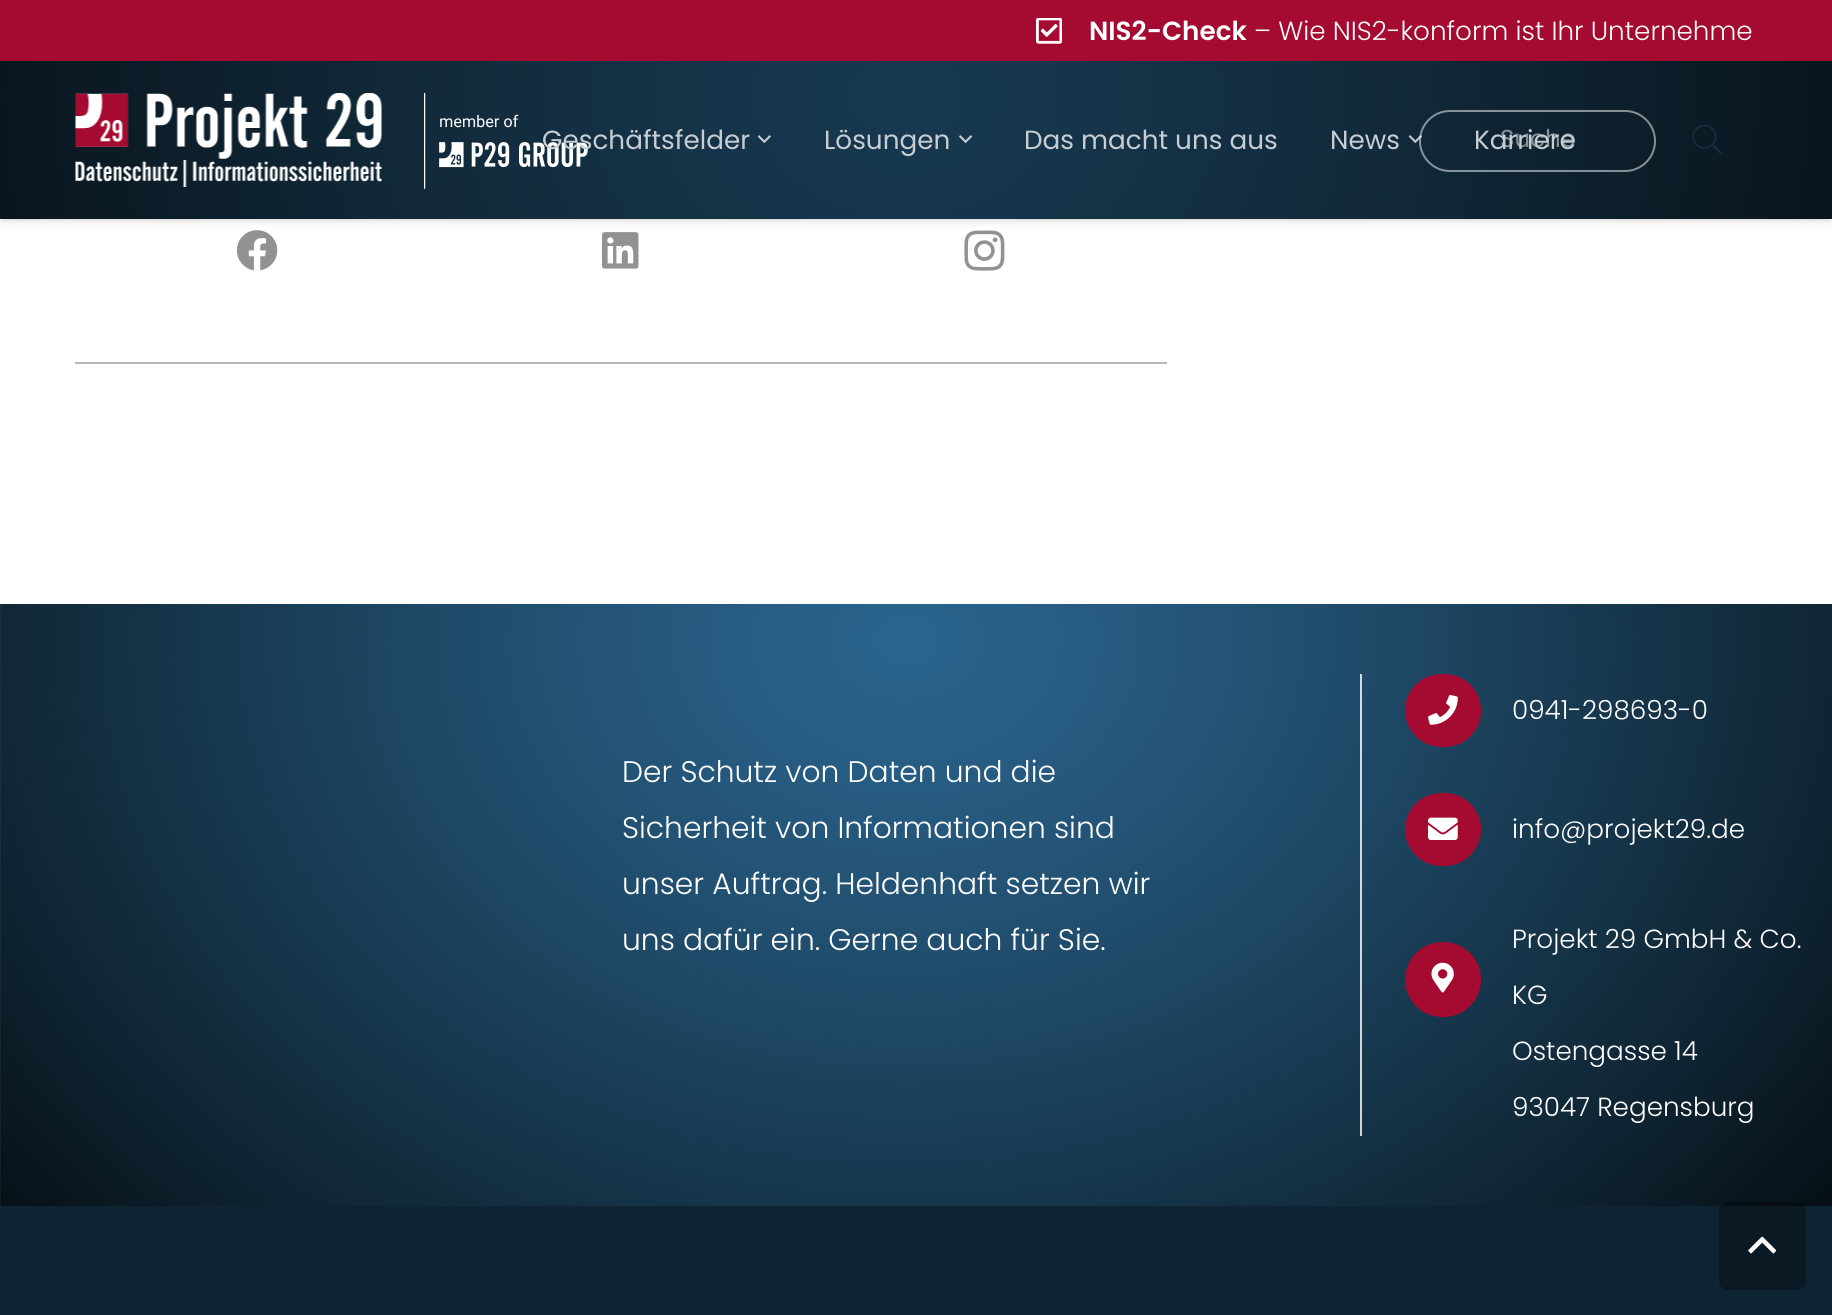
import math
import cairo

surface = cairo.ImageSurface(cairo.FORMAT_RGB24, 1832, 1315)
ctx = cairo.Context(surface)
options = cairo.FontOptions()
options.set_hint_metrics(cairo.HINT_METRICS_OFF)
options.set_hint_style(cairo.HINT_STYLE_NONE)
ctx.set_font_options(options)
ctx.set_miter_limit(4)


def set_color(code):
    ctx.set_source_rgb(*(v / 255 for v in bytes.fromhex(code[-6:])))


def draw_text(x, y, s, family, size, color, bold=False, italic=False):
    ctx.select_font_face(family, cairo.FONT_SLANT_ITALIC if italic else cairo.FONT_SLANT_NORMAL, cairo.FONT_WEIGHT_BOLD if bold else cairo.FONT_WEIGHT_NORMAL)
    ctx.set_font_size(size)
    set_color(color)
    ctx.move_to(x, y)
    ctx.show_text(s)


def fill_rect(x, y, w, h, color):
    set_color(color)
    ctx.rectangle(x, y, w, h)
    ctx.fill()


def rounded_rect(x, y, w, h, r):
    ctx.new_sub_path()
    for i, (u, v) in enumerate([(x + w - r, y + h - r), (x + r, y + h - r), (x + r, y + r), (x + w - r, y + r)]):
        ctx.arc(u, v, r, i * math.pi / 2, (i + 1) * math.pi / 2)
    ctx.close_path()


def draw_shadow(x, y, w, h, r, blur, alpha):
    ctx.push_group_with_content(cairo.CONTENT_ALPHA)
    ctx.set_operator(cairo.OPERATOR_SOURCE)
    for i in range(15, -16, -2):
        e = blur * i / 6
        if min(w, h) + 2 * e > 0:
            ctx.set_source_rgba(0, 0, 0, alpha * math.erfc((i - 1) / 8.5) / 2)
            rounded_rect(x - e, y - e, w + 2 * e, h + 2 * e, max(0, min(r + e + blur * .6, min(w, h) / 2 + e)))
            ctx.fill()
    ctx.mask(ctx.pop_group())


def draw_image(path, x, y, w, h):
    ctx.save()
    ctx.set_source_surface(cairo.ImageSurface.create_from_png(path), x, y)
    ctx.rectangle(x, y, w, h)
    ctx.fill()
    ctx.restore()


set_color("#ffffff")
ctx.paint()
draw_image("assets/img8.png", 236, 230, 42, 41)
draw_image("assets/img9.png", 602, 232, 37, 37)
draw_image("assets/img10.png", 964, 230, 41, 41)
set_color("#000000")
draw_shadow(2, 68, 1829, 154, 0, 4.5, 0.1)
fill_rect(0, 0, 1832, 61, "#a50a30")
draw_image("assets/img1.png", 1036, 18, 26, 26)
draw_text(1089, 40, "NIS2-Check", "Poppins SemiBold", 26.25, "#ffffff")
draw_text(1254, 40, "– Wie NIS2-konform ist Ihr Unternehme", "Poppins Light", 26.25, "#ffffff")
set_color("#000000")
draw_shadow(2, 67, 1829, 154, 0, 1, 0.05)
gradient = cairo.RadialGradient(0, 0, 0, 0, 0, 1)
gradient.set_matrix(cairo.Matrix(1 / 1199, 0, 0, 1 / 942, -1 * 906 / 1199, -1 * 97 / 942))
gradient.add_color_stop_rgba(0, 0.165, 0.392, 0.553, 1)
gradient.add_color_stop_rgba(0.15, 0.153, 0.361, 0.51, 1)
gradient.add_color_stop_rgba(0.42, 0.118, 0.282, 0.396, 1)
gradient.add_color_stop_rgba(0.76, 0.063, 0.153, 0.212, 1)
gradient.add_color_stop_rgba(1, 0.02, 0.051, 0.071, 1)
gradient.add_color_stop_rgba(1, 0.02, 0.051, 0.071, 1)
ctx.set_source(gradient)
ctx.rectangle(0, 61, 1832, 158)
ctx.fill()
ctx.set_source_rgba(0, 0, 0, 0.43)
ctx.rectangle(0, 61, 1832, 158)
ctx.fill()
draw_image("assets/img2.png", 75, 93, 307, 94)
draw_image("assets/img3.png", 424, 93, 164, 96)
draw_text(542, 149, "Geschäftsfelder", "Poppins", 26.25, "#c7ced3")
draw_image("assets/img4.png", 757, 135, 14, 8)
draw_text(824, 149, "Lösungen", "Poppins", 26.25, "#c7ced3")
draw_image("assets/img5.png", 959, 135, 14, 8)
draw_text(1024, 149, "Das macht uns aus", "Poppins", 26.25, "#c7ced3")
draw_text(1330, 149, "News", "Poppins", 26.25, "#c7ced3")
rounded_rect(1420, 111, 235, 60, 30)
ctx.set_source_rgba(1, 1, 1, 0.5)
ctx.stroke()
draw_image("assets/img6.png", 1408, 135, 14, 8)
draw_text(1500, 147, "Suche", "Poppins", 24.5, "#879198")
draw_text(1474, 149, "Karriere", "Poppins", 26.25, "#c7ced3")
draw_image("assets/img7.png", 1692, 124, 30, 31)
fill_rect(75, 362, 1092, 2, "#b7b7b7")
draw_image("assets/img11.png", 0, 604, 1832, 602)
draw_text(622, 782, "Der Schutz von Daten und die", "Poppins Light", 29.75, "#ffffff")
draw_text(622, 838, "Sicherheit von Informationen sind", "Poppins Light", 29.75, "#ffffff")
draw_text(622, 894, "unser Auftrag. Heldenhaft setzen wir", "Poppins Light", 29.75, "#ffffff")
draw_text(622, 950, "uns dafür ein. Gerne auch für Sie.", "Poppins Light", 29.75, "#ffffff")
ctx.set_source_rgba(1, 1, 1, 0.8)
ctx.rectangle(1360, 674, 2, 462)
ctx.fill()
set_color("#a50a30")
rounded_rect(1405, 674, 76, 73, 36.5)
ctx.fill()
draw_image("assets/img12.png", 1428, 695, 30, 30)
draw_text(1512, 719, "0941-298693-0", "Poppins Light", 26.25, "#ffffff")
set_color("#a50a30")
rounded_rect(1405, 793, 76, 73, 36.5)
ctx.fill()
draw_image("assets/img13.png", 1428, 817, 30, 23)
draw_text(1512, 838, "info@projekt29.de", "Poppins Light", 26.25, "#ffffff")
set_color("#a50a30")
rounded_rect(1405, 942, 76, 75, 37.5)
ctx.fill()
draw_image("assets/img14.png", 1431, 962, 23, 31)
draw_text(1512, 948, "Projekt 29 GmbH & Co.", "Poppins Light", 26.25, "#ffffff")
draw_text(1512, 1004, "KG", "Poppins Light", 26.25, "#ffffff")
draw_text(1512, 1060, "Ostengasse 14", "Poppins Light", 26.25, "#ffffff")
draw_text(1512, 1116, "93047 Regensburg", "Poppins Light", 26.25, "#ffffff")
fill_rect(0, 1206, 1832, 109, "#0f2433")
ctx.set_source_rgba(0, 0, 0, 0.3)
rounded_rect(1719, 1202, 87, 88, 9)
ctx.fill()
draw_image("assets/img15.png", 1748, 1236, 29, 18)
surface.write_to_png("output.png")
